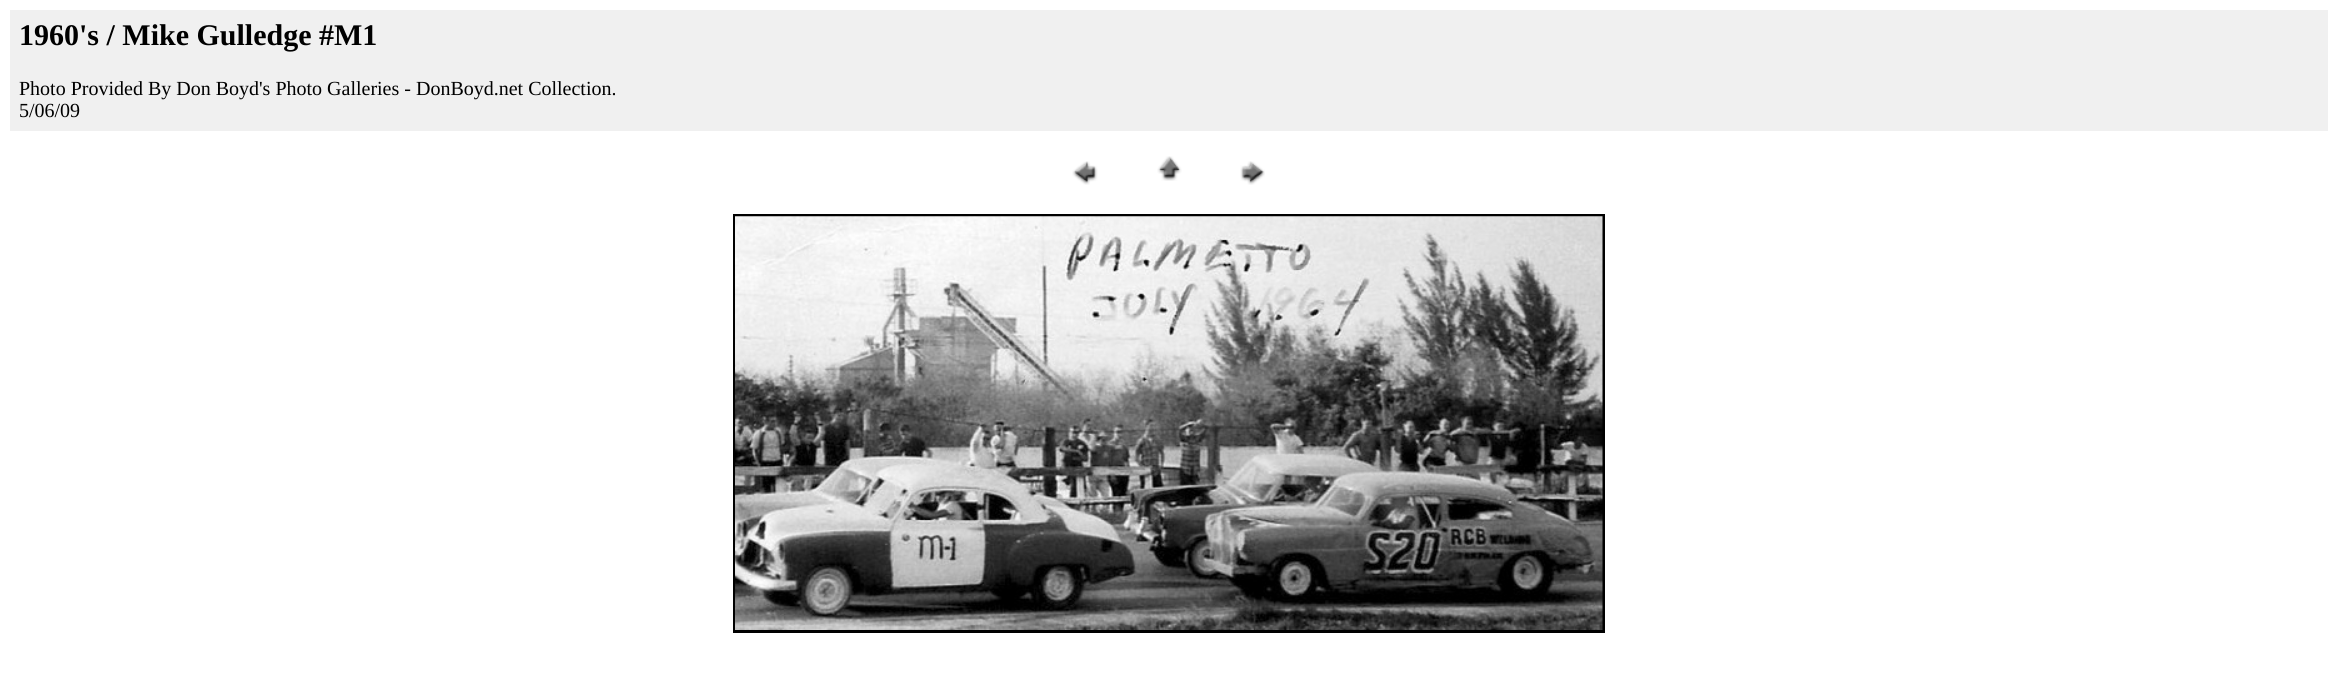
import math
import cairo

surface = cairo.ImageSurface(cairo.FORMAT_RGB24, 2337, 680)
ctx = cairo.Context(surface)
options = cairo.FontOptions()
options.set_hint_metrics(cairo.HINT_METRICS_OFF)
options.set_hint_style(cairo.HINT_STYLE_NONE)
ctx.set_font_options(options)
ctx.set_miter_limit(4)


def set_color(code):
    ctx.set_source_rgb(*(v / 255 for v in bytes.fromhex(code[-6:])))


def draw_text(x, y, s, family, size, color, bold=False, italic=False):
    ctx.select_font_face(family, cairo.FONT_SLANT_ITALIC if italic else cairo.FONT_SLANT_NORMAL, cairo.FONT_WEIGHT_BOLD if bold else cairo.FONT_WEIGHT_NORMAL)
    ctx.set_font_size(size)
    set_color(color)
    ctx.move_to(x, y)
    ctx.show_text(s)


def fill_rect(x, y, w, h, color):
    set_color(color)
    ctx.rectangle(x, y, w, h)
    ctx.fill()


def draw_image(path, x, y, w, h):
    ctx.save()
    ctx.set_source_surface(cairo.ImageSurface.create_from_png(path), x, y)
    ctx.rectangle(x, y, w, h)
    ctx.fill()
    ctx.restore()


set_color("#ffffff")
ctx.paint()
fill_rect(10, 10, 2318, 121, "#f0f0f0")
draw_text(19, 45, "1960's / Mike Gulledge #M1", "Liberation Serif", 30, "#000000", bold=True)
draw_text(19, 95, "Photo Provided By Don Boyd's Photo Galleries - DonBoyd.net Collection.", "Liberation Serif", 20, "#000000")
draw_text(19, 117, "5/06/09", "Liberation Serif", 20, "#000000")
draw_image("assets/img1.png", 1072, 161, 26, 24)
draw_image("assets/img2.png", 1157, 156, 25, 25)
draw_image("assets/img3.png", 1240, 161, 25, 24)
ctx.rectangle(734.5, 215.5, 869, 416)
ctx.set_line_width(3)
ctx.stroke()
draw_image("assets/img4.png", 735, 216, 868, 414)
surface.write_to_png("output.png")
